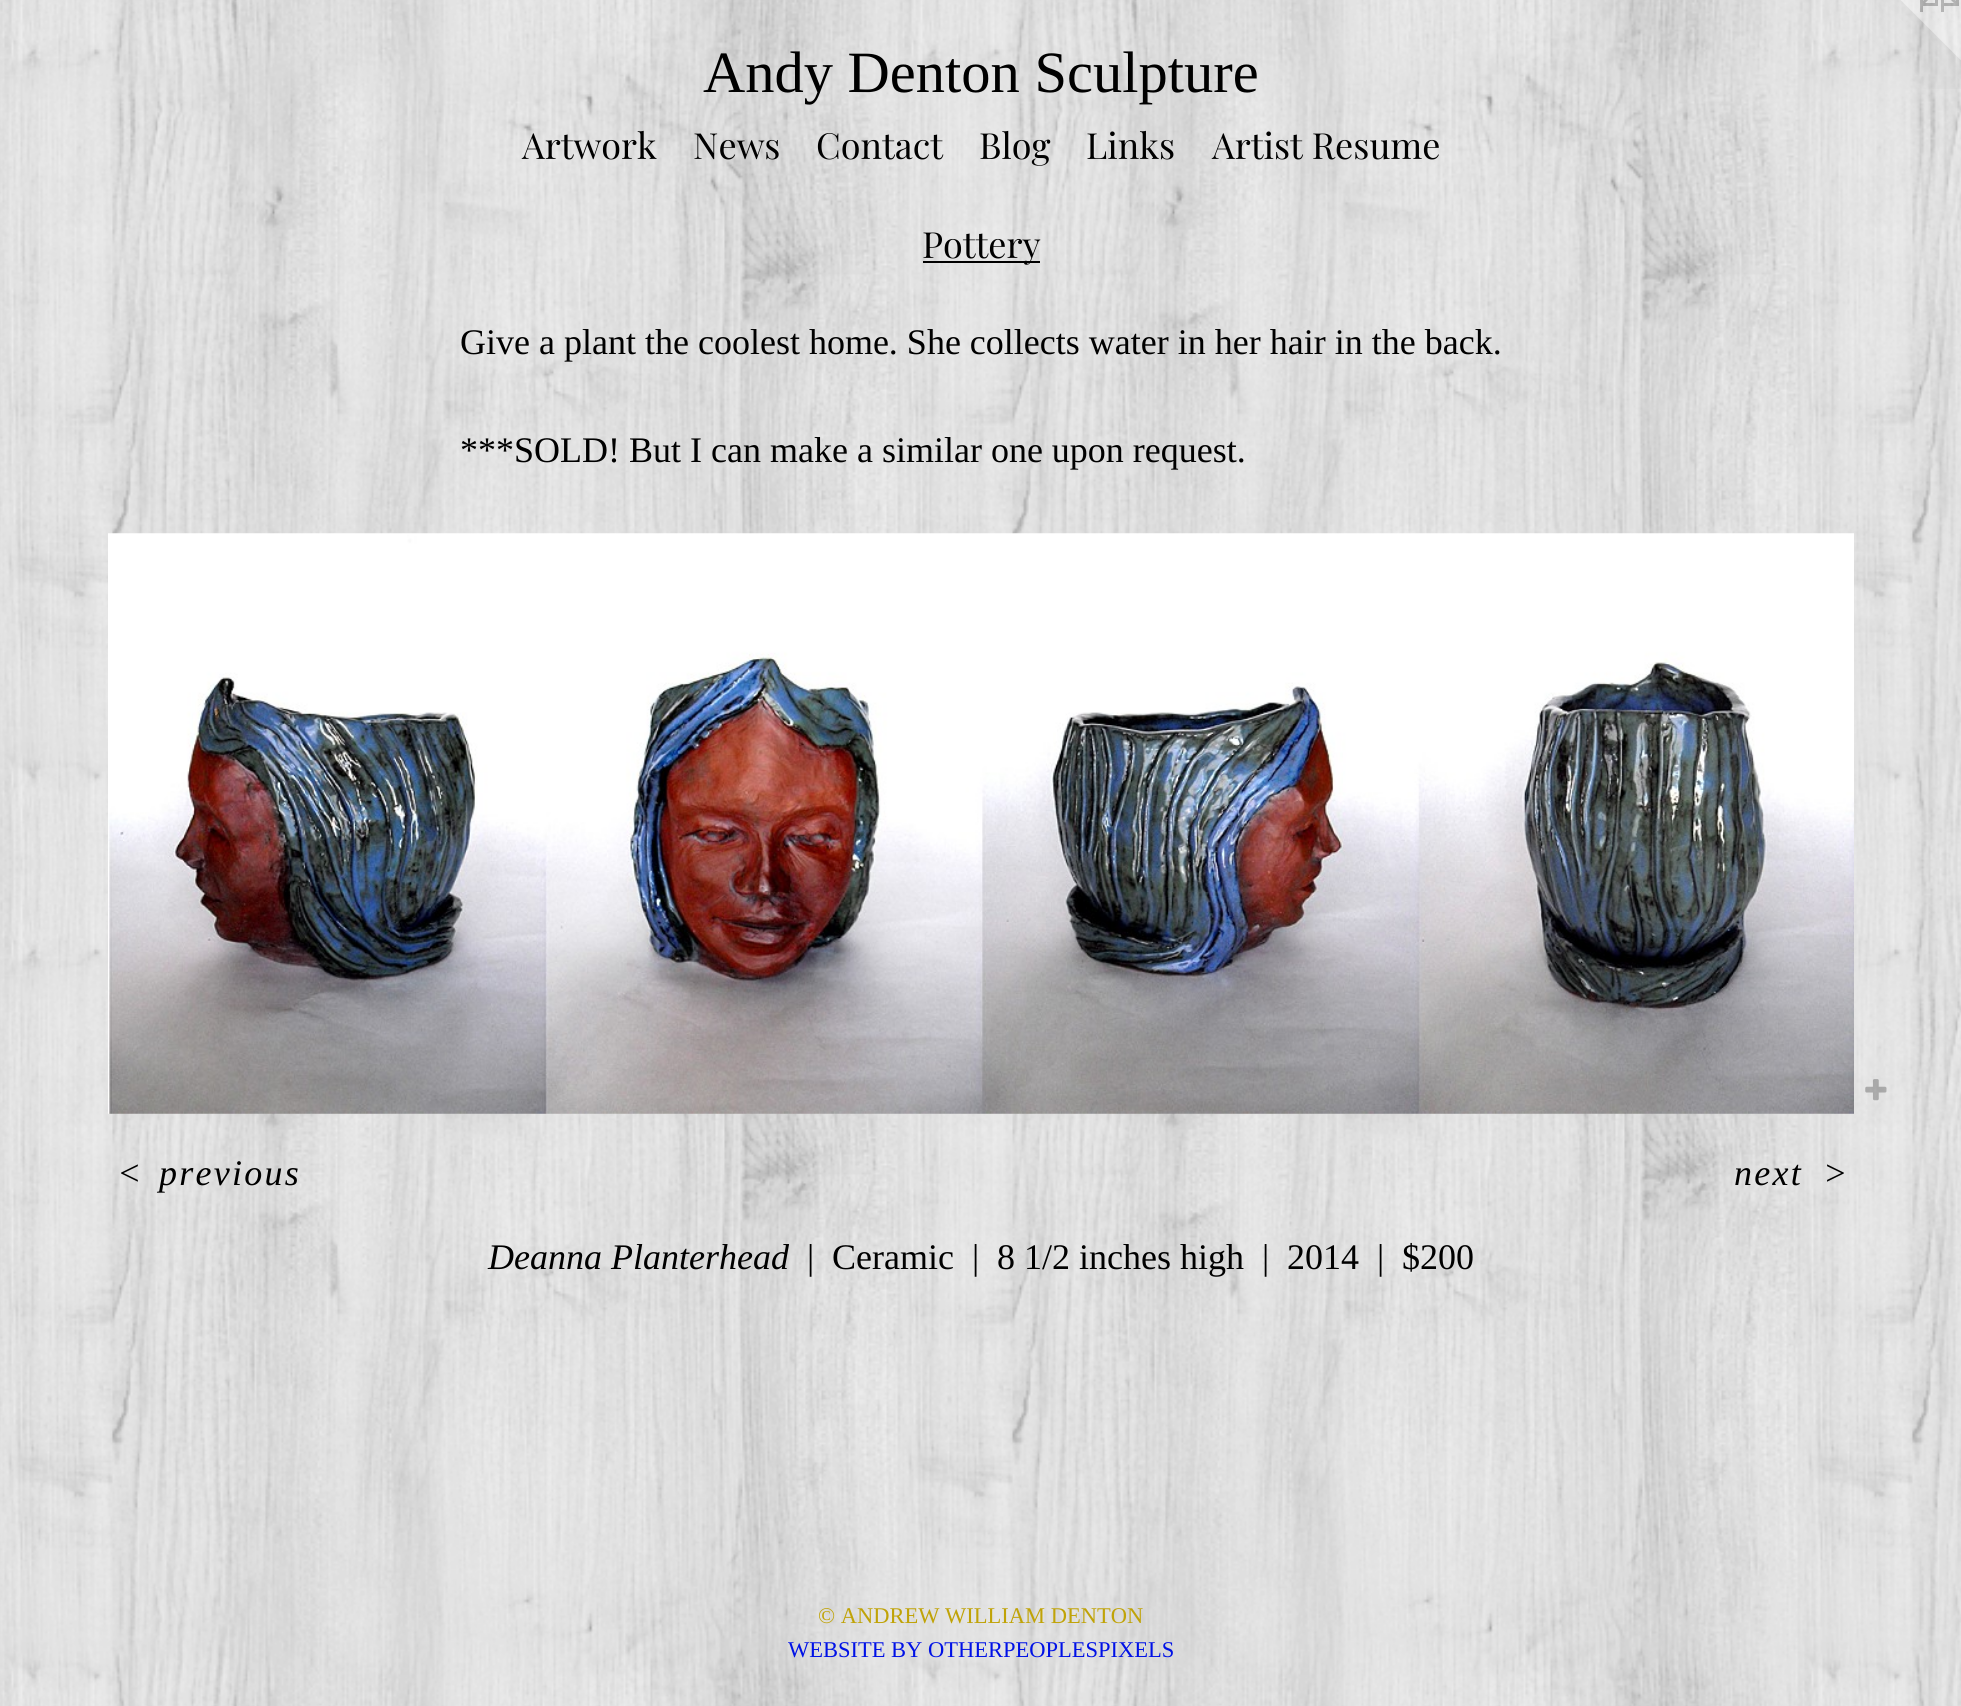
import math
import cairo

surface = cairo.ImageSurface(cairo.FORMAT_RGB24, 1961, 1706)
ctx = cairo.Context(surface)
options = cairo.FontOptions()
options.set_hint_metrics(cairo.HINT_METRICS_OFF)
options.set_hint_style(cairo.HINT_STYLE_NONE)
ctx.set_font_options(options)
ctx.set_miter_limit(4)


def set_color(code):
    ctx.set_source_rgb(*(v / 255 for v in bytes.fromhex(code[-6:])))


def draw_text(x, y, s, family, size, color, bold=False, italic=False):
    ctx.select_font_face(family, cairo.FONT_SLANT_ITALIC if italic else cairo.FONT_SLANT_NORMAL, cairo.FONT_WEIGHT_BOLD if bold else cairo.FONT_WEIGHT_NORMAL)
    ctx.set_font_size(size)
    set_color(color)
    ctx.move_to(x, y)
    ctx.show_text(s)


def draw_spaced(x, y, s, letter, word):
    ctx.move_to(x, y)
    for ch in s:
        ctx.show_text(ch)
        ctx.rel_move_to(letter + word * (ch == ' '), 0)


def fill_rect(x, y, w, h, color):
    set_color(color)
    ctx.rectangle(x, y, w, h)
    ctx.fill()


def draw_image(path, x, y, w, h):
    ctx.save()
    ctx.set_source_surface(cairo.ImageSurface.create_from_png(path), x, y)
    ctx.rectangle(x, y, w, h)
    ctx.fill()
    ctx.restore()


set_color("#ffffff")
ctx.paint()
draw_image("assets/img1.png", 0, 0, 1961, 1706)
draw_text(703, 92, "Andy Denton Sculpture", "Liberation Serif", 58.5, "#000000")
draw_image("assets/img2.png", 1872, 0, 89, 89)
draw_text(522, 159, "Artwork", "Playfair Display", 36, "#000000")
draw_text(693, 159, "News", "Playfair Display", 36, "#000000")
draw_text(816, 159, "Contact", "Playfair Display", 36, "#000000")
draw_text(979, 159, "Blog", "Playfair Display", 36, "#000000")
draw_text(1086, 159, "Links", "Playfair Display", 36, "#000000")
draw_text(1212, 159, "Artist Resume", "Playfair Display", 36, "#000000")
fill_rect(923, 261, 117, 2, "#000000")
draw_text(922, 258, "Pottery", "Playfair Display", 36, "#000000")
draw_text(460, 354, "Give a plant the coolest home. She collects water in her hair in the back.", "Liberation Serif", 36, "#000000")
draw_text(460, 462, "***SOLD! But I can make a similar one upon request.", "Liberation Serif", 36, "#000000")
draw_image("assets/img3.png", 108, 533, 1746, 581)
draw_image("assets/img4.png", 1865, 1079, 22, 22)
ctx.select_font_face("Liberation Serif", cairo.FONT_SLANT_ITALIC)
draw_spaced(117, 1185, "<", 2.25, 0)
draw_spaced(159, 1185, "previous", 2.25, 0)
draw_spaced(1734, 1185, "next", 2.25, 0)
draw_spaced(1823, 1185, ">", 2.25, 0)
draw_text(488, 1269, "Deanna Planterhead", "Liberation Serif", 36, "#000000", italic=True)
draw_text(807, 1269, "|", "Liberation Serif", 36, "#000000")
draw_text(832, 1269, "Ceramic", "Liberation Serif", 36, "#000000")
draw_text(972, 1269, "|", "Liberation Serif", 36, "#000000")
draw_text(997, 1269, "8 1/2 inches high", "Liberation Serif", 36, "#000000")
draw_text(1262, 1269, "|", "Liberation Serif", 36, "#000000")
draw_text(1287, 1269, "2014", "Liberation Serif", 36, "#000000")
draw_text(1377, 1269, "|", "Liberation Serif", 36, "#000000")
draw_text(1402, 1269, "$200", "Liberation Serif", 36, "#000000")
draw_text(818, 1623, "© ANDREW WILLIAM DENTON", "Liberation Serif", 22.5, "#c0a307")
draw_text(788, 1657, "WEBSITE BY OTHERPEOPLESPIXELS", "Liberation Serif", 22.5, "#0011e6")
surface.write_to_png("output.png")
